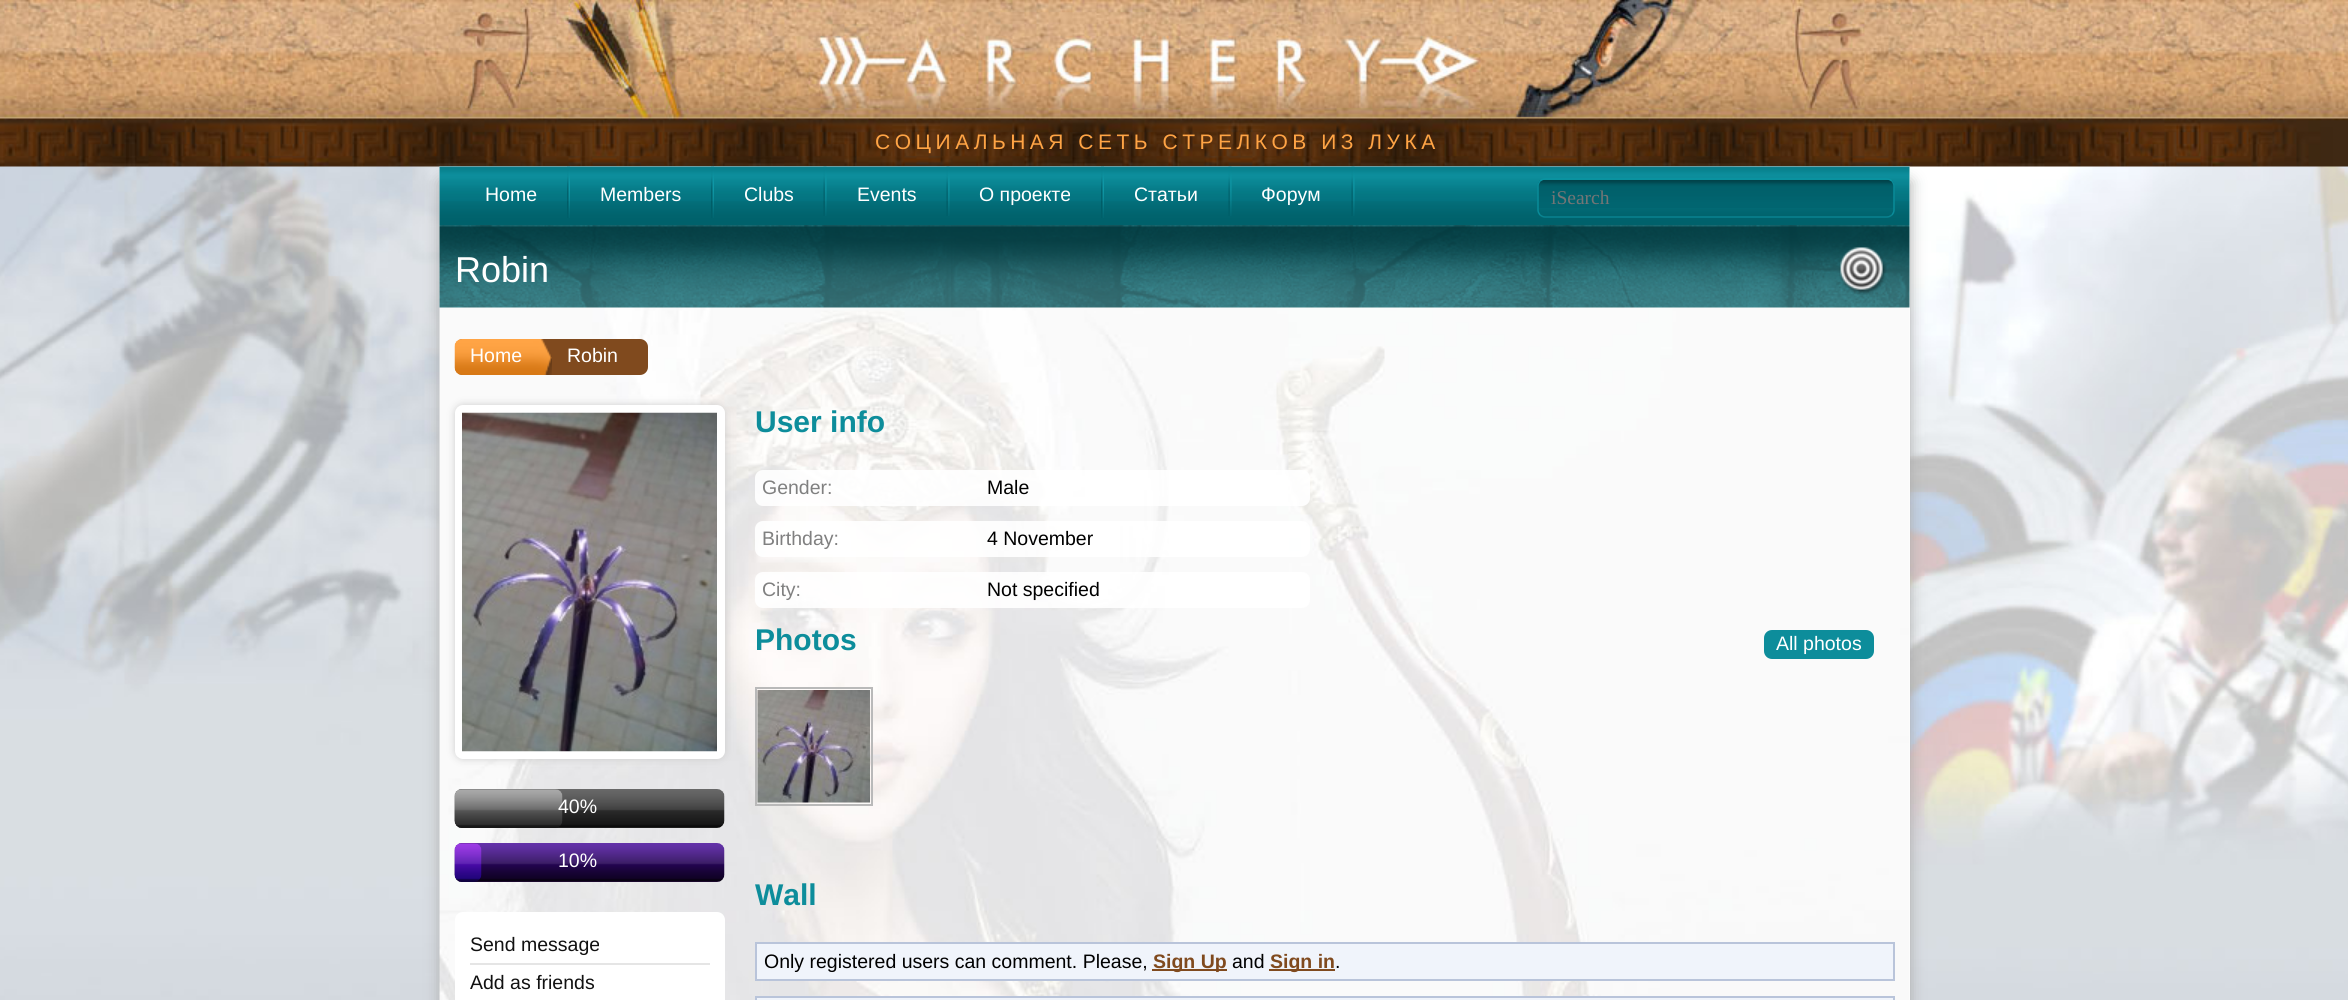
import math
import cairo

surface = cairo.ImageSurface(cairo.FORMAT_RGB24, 2348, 1000)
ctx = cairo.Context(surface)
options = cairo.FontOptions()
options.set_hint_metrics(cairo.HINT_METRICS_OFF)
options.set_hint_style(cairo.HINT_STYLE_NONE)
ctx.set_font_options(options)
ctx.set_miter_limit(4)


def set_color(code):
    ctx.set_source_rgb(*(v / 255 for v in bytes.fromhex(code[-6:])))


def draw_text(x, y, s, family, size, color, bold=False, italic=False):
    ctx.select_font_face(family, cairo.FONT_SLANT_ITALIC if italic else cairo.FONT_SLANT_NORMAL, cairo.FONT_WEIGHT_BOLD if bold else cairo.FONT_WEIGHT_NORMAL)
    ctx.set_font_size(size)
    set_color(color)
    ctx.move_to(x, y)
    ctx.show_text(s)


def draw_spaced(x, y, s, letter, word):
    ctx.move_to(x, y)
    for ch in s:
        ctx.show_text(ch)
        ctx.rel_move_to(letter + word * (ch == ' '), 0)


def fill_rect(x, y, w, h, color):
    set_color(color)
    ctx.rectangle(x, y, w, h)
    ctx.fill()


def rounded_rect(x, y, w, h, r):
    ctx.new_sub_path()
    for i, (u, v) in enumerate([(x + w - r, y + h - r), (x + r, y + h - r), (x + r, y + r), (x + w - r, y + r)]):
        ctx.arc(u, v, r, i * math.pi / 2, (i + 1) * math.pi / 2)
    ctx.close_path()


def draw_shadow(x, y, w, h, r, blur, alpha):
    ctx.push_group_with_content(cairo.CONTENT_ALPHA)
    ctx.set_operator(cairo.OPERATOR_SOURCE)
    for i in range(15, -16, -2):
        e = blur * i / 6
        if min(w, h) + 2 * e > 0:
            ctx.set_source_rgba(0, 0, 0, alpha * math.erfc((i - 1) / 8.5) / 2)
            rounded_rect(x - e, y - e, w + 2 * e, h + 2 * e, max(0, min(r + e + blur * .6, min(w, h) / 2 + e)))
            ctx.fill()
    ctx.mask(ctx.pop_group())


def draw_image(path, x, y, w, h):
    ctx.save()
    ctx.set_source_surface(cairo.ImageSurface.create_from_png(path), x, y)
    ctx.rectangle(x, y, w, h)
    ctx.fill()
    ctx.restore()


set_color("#ffffff")
ctx.paint()
draw_image("assets/img1.png", 0, 166, 2348, 834)
draw_image("assets/img2.png", 0, 0, 2348, 167)
ctx.select_font_face("Liberation Sans")
ctx.set_font_size(21)
set_color("#ffa445")
draw_spaced(875, 149, "СОЦИАЛЬНАЯ СЕТЬ СТРЕЛКОВ ИЗ ЛУКА", 4.5, 0)
set_color("#aaaaaa")
draw_shadow(440, 182, 1470, 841, 0, 7.5, 1)
fill_rect(1909, 167, 1, 833, "#ffffff")
draw_image("assets/img3.png", 439, 166, 1471, 834)
draw_image("assets/img4.png", 439, 166, 1471, 59)
draw_image("assets/img5.png", 567, 166, 3, 52)
draw_text(485, 201, "Home", "Liberation Sans", 19.5, "#ffffff")
draw_image("assets/img6.png", 711, 166, 3, 52)
draw_text(600, 201, "Members", "Liberation Sans", 19.5, "#ffffff")
draw_image("assets/img7.png", 823, 166, 4, 50)
draw_text(744, 201, "Clubs", "Liberation Sans", 19.5, "#ffffff")
draw_image("assets/img8.png", 946, 166, 4, 50)
draw_text(857, 201, "Events", "Liberation Sans", 19.5, "#ffffff")
draw_image("assets/img9.png", 1101, 166, 3, 52)
draw_text(979, 201, "О проекте", "Liberation Sans", 19.5, "#ffffff")
draw_image("assets/img10.png", 1228, 166, 4, 50)
draw_text(1134, 201, "Статьи", "Liberation Sans", 19.5, "#ffffff")
draw_image("assets/img11.png", 1351, 166, 4, 50)
draw_text(1261, 201, "Форум", "Liberation Sans", 19.5, "#ffffff")
draw_image("assets/img12.png", 1537, 180, 358, 28)
ctx.new_path()
ctx.move_to(1540, 181)
ctx.curve_to(1541.5, 180, 1543, 179, 1545, 179)
ctx.line_to(1887, 179)
ctx.curve_to(1889, 179, 1890.5, 180, 1892, 181)
set_color("#0a94a2")
ctx.set_line_width(1.5)
ctx.stroke()
ctx.new_path()
ctx.move_to(1892, 181)
ctx.curve_to(1893, 182.5, 1894, 184, 1894, 186)
ctx.line_to(1894, 210)
ctx.curve_to(1894, 212, 1893, 213.5, 1892, 215)
set_color("#098c9a")
ctx.stroke()
ctx.new_path()
ctx.move_to(1892, 215)
ctx.curve_to(1890.5, 216, 1889, 217, 1887, 217)
ctx.line_to(1545, 217)
ctx.curve_to(1543, 217, 1541.5, 216, 1540, 215)
set_color("#098390")
ctx.stroke()
ctx.new_path()
ctx.move_to(1540, 215)
ctx.curve_to(1539, 213.5, 1538, 212, 1538, 210)
ctx.line_to(1538, 186)
ctx.curve_to(1538, 184, 1539, 182.5, 1540, 181)
set_color("#098c9a")
ctx.stroke()
draw_text(1551, 204, "iSearch", "Liberation Serif", 19.5, "#757575")
draw_image("assets/img13.png", 439, 225, 1471, 83)
draw_text(455, 282, "Robin", "Liberation Sans", 36, "#ffffff")
set_color("#804a1e")
rounded_rect(455, 339, 193, 36, 8)
ctx.fill()
draw_image("assets/img14.png", 454, 339, 98, 36)
draw_text(470, 362, "Home", "Liberation Sans", 19.5, "#ffffff")
draw_text(567, 362, "Robin", "Liberation Sans", 19.5, "#ffffff")
set_color("#cdcdcd")
draw_shadow(455, 405, 270, 354, 8, 4, 1)
rounded_rect(459, 409, 262, 346, 4)
set_color("#ffffff")
ctx.set_line_width(8)
ctx.stroke()
draw_image("assets/img15.png", 462, 412, 255, 340)
draw_image("assets/img16.png", 454, 789, 271, 39)
draw_image("assets/img17.png", 454, 789, 109, 39)
draw_text(558, 813, "40%", "Liberation Sans", 19.5, "#ffffff")
draw_image("assets/img18.png", 454, 843, 271, 39)
draw_image("assets/img19.png", 454, 843, 28, 39)
draw_text(558, 867, "10%", "Liberation Sans", 19.5, "#ffffff")
rounded_rect(455, 912, 270, 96, 8)
ctx.fill()
fill_rect(470, 963, 240, 2, "#e5e5e5")
draw_text(470, 951, "Send message", "Liberation Sans", 19.5, "#111111")
draw_text(470, 989, "Add as friends", "Liberation Sans", 19.5, "#111111")
draw_image("assets/img20.png", 1839, 247, 48, 48)
draw_text(755, 432, "User info", "Liberation Sans", 30, "#0d8d9b", bold=True)
ctx.set_source_rgba(1, 1, 1, 0.9)
rounded_rect(755, 470, 555, 36, 8)
ctx.fill()
draw_text(762, 494, "Gender:", "Liberation Sans", 19.5, "#808080")
draw_text(987, 494, "Male", "Liberation Sans", 19.5, "#000000")
ctx.set_source_rgba(1, 1, 1, 0.9)
rounded_rect(755, 521, 555, 36, 8)
ctx.fill()
draw_text(762, 545, "Birthday:", "Liberation Sans", 19.5, "#808080")
draw_text(987, 545, "4 November", "Liberation Sans", 19.5, "#000000")
ctx.set_source_rgba(1, 1, 1, 0.9)
rounded_rect(755, 572, 555, 36, 8)
ctx.fill()
draw_text(762, 596, "City:", "Liberation Sans", 19.5, "#808080")
draw_text(987, 596, "Not specified", "Liberation Sans", 19.5, "#000000")
draw_text(755, 650, "Photos", "Liberation Sans", 30, "#0d8d9b", bold=True)
rounded_rect(1764, 630, 110, 29, 8)
ctx.fill()
draw_text(1776, 650, "All photos", "Liberation Sans", 19.5, "#ffffff")
ctx.rectangle(756, 688, 116, 117)
set_color("#b9b9b9")
ctx.set_line_width(2)
ctx.stroke()
draw_image("assets/img21.png", 757, 690, 113, 113)
draw_text(755, 905, "Wall", "Liberation Sans", 30, "#0d8d9b", bold=True)
set_color("#f0f4fb")
ctx.rectangle(756, 943, 1138, 37)
ctx.fill_preserve()
set_color("#b9c4da")
ctx.stroke()
draw_text(764, 968, "Only registered users can comment. Please,", "Liberation Sans", 19.5, "#000000")
fill_rect(1152, 969, 75, 2, "#804a1e")
draw_text(1153, 968, "Sign Up", "Liberation Sans", 19.5, "#804a1e", bold=True)
draw_text(1232, 968, "and", "Liberation Sans", 19.5, "#000000")
fill_rect(1269, 969, 66, 2, "#804a1e")
draw_text(1270, 968, "Sign in", "Liberation Sans", 19.5, "#804a1e", bold=True)
draw_text(1335, 968, ".", "Liberation Sans", 19.5, "#000000")
set_color("#f0f4fb")
ctx.rectangle(756, 997, 1138, 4)
ctx.fill_preserve()
set_color("#b9c4da")
ctx.stroke()
surface.write_to_png("output.png")
